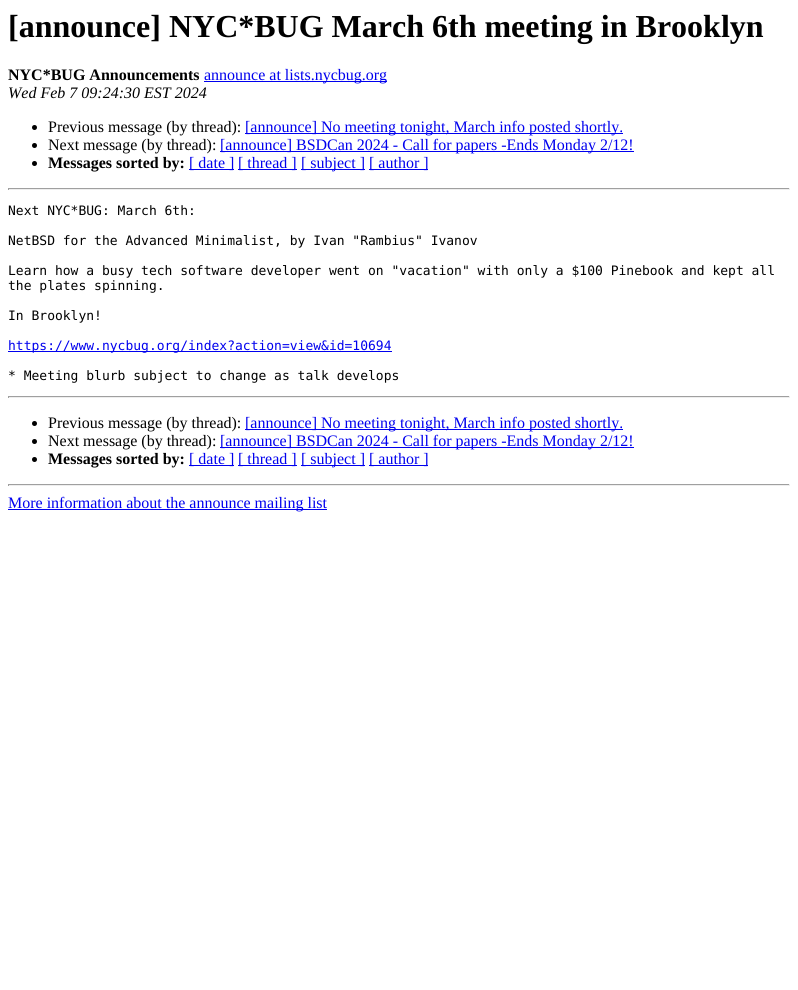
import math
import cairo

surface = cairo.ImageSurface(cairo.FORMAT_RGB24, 798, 990)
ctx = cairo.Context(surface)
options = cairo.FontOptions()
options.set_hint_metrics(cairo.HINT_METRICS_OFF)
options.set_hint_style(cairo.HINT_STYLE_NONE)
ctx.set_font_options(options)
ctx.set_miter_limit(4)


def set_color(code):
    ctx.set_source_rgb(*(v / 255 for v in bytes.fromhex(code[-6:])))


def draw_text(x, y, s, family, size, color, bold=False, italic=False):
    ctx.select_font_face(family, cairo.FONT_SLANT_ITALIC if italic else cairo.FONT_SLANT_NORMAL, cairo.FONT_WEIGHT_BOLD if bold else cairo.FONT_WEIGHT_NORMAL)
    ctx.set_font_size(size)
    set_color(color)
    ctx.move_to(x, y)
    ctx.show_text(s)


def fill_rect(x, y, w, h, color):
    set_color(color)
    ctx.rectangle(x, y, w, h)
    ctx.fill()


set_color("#ffffff")
ctx.paint()
draw_text(8, 37, "[announce] NYC*BUG March 6th meeting in Brooklyn", "Liberation Serif", 32, "#000000", bold=True)
draw_text(8, 80, "NYC*BUG Announcements", "Liberation Serif", 16, "#000000", bold=True)
fill_rect(204, 81, 183, 1, "#0000ee")
draw_text(204, 80, "announce at lists.nycbug.org", "Liberation Serif", 16, "#0000ee")
draw_text(8, 98, "Wed Feb 7 09:24:30 EST 2024", "Liberation Serif", 16, "#000000", italic=True)
ctx.new_path()
ctx.arc(34.5, 127.5, 2.5, 0, 2 * math.pi)
ctx.fill()
draw_text(48, 132, "Previous message (by thread):", "Liberation Serif", 16, "#000000")
fill_rect(245, 133, 378, 1, "#0000ee")
draw_text(245, 132, "[announce] No meeting tonight, March info posted shortly.", "Liberation Serif", 16, "#0000ee")
set_color("#000000")
ctx.new_path()
ctx.arc(34.5, 145.5, 2.5, 0, 2 * math.pi)
ctx.fill()
draw_text(48, 150, "Next message (by thread):", "Liberation Serif", 16, "#000000")
fill_rect(220, 151, 414, 1, "#0000ee")
draw_text(220, 150, "[announce] BSDCan 2024 - Call for papers -Ends Monday 2/12!", "Liberation Serif", 16, "#0000ee")
set_color("#000000")
ctx.new_path()
ctx.arc(34.5, 163.5, 2.5, 0, 2 * math.pi)
ctx.fill()
draw_text(48, 168, "Messages sorted by:", "Liberation Serif", 16, "#000000", bold=True)
fill_rect(189, 169, 45, 1, "#0000ee")
draw_text(189, 168, "[ date ]", "Liberation Serif", 16, "#0000ee")
fill_rect(238, 169, 59, 1, "#0000ee")
draw_text(238, 168, "[ thread ]", "Liberation Serif", 16, "#0000ee")
fill_rect(301, 169, 64, 1, "#0000ee")
draw_text(301, 168, "[ subject ]", "Liberation Serif", 16, "#0000ee")
fill_rect(369, 169, 59, 1, "#0000ee")
draw_text(369, 168, "[ author ]", "Liberation Serif", 16, "#0000ee")
fill_rect(8, 188, 782, 1, "#9f9f9f")
fill_rect(789, 188, 1, 2, "#eeeeee")
fill_rect(8, 189, 782, 1, "#eeeeee")
fill_rect(8, 188, 1, 2, "#9f9f9f")
draw_text(8, 215, "Next NYC*BUG: March 6th:", "DejaVu Sans Mono", 13, "#000000")
draw_text(8, 245, "NetBSD for the Advanced Minimalist, by Ivan \"Rambius\" Ivanov", "DejaVu Sans Mono", 13, "#000000")
draw_text(8, 275, "Learn how a busy tech software developer went on \"vacation\" with only a $100 Pinebook and kept all", "DejaVu Sans Mono", 13, "#000000")
draw_text(8, 290, "the plates spinning.", "DejaVu Sans Mono", 13, "#000000")
draw_text(8, 320, "In Brooklyn!", "DejaVu Sans Mono", 13, "#000000")
fill_rect(8, 351, 384, 1, "#0000ee")
draw_text(8, 350, "https://www.nycbug.org/index?action=view&id=10694", "DejaVu Sans Mono", 13, "#0000ee")
draw_text(8, 380, "* Meeting blurb subject to change as talk develops", "DejaVu Sans Mono", 13, "#000000")
fill_rect(8, 396, 782, 1, "#9f9f9f")
fill_rect(789, 396, 1, 2, "#eeeeee")
fill_rect(8, 397, 782, 1, "#eeeeee")
fill_rect(8, 396, 1, 2, "#9f9f9f")
set_color("#000000")
ctx.new_path()
ctx.arc(34.5, 423.5, 2.5, 0, 2 * math.pi)
ctx.fill()
draw_text(48, 428, "Previous message (by thread):", "Liberation Serif", 16, "#000000")
fill_rect(245, 429, 378, 1, "#0000ee")
draw_text(245, 428, "[announce] No meeting tonight, March info posted shortly.", "Liberation Serif", 16, "#0000ee")
set_color("#000000")
ctx.new_path()
ctx.arc(34.5, 441.5, 2.5, 0, 2 * math.pi)
ctx.fill()
draw_text(48, 446, "Next message (by thread):", "Liberation Serif", 16, "#000000")
fill_rect(220, 447, 414, 1, "#0000ee")
draw_text(220, 446, "[announce] BSDCan 2024 - Call for papers -Ends Monday 2/12!", "Liberation Serif", 16, "#0000ee")
set_color("#000000")
ctx.new_path()
ctx.arc(34.5, 459.5, 2.5, 0, 2 * math.pi)
ctx.fill()
draw_text(48, 464, "Messages sorted by:", "Liberation Serif", 16, "#000000", bold=True)
fill_rect(189, 465, 45, 1, "#0000ee")
draw_text(189, 464, "[ date ]", "Liberation Serif", 16, "#0000ee")
fill_rect(238, 465, 59, 1, "#0000ee")
draw_text(238, 464, "[ thread ]", "Liberation Serif", 16, "#0000ee")
fill_rect(301, 465, 64, 1, "#0000ee")
draw_text(301, 464, "[ subject ]", "Liberation Serif", 16, "#0000ee")
fill_rect(369, 465, 59, 1, "#0000ee")
draw_text(369, 464, "[ author ]", "Liberation Serif", 16, "#0000ee")
fill_rect(8, 484, 782, 1, "#9f9f9f")
fill_rect(789, 484, 1, 2, "#eeeeee")
fill_rect(8, 485, 782, 1, "#eeeeee")
fill_rect(8, 484, 1, 2, "#9f9f9f")
fill_rect(8, 509, 319, 1, "#0000ee")
draw_text(8, 508, "More information about the announce mailing list", "Liberation Serif", 16, "#0000ee")
surface.write_to_png("output.png")
